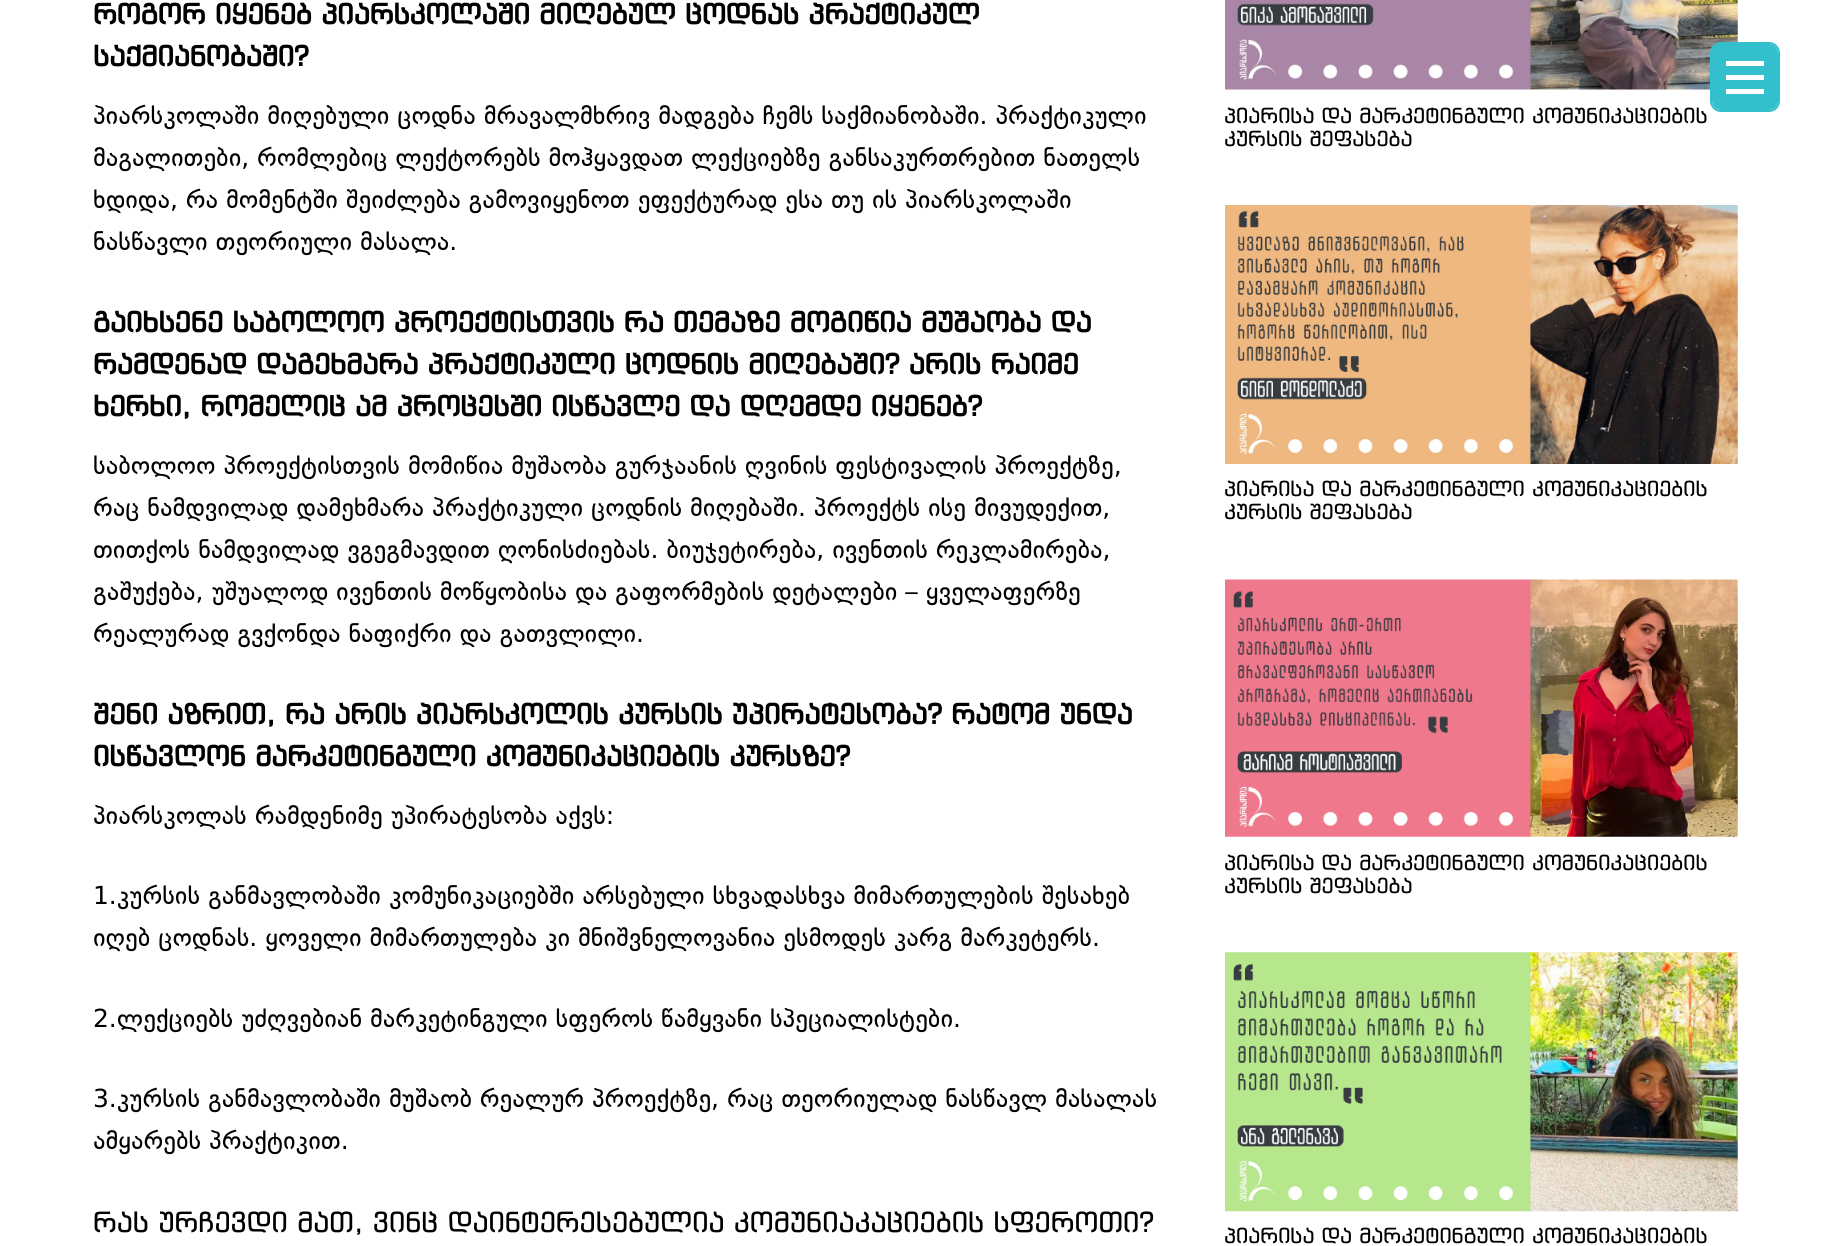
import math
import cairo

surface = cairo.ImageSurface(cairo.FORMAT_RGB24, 1830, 1246)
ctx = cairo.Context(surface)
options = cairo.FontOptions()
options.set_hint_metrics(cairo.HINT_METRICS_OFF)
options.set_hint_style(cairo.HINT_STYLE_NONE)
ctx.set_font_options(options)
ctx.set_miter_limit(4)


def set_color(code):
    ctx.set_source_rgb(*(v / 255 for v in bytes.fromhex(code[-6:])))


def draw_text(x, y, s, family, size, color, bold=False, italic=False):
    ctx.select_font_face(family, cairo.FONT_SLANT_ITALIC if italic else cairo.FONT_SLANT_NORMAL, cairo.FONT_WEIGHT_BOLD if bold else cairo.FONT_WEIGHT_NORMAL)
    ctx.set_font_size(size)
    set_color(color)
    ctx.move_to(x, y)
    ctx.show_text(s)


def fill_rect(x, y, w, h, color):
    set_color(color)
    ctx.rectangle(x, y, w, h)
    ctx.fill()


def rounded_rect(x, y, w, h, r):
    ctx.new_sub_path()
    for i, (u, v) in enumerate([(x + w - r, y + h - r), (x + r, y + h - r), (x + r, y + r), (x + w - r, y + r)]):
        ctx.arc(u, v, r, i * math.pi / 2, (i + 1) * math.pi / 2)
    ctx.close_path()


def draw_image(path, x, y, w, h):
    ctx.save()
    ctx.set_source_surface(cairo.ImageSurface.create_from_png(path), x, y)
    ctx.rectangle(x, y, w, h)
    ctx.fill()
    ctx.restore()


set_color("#ffffff")
ctx.paint()
draw_text(93, 24, "როგორ იყენებ პიარსკოლაში მიღებულ ცოდნას პრაქტიკულ", "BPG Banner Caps", 28, "#000000", bold=True)
draw_text(93, 66, "საქმიანობაში?", "BPG Banner Caps", 28, "#000000", bold=True)
draw_text(93, 124, "პიარსკოლაში მიღებული ცოდნა მრავალმხრივ მადგება ჩემს საქმიანობაში. პრაქტიკული", "DejaVu Sans", 26.25, "#000000")
draw_text(93, 166, "მაგალითები, რომლებიც ლექტორებს მოჰყავდათ ლექციებზე განსაკურთრებით ნათელს", "DejaVu Sans", 26.25, "#000000")
draw_text(93, 208, "ხდიდა, რა მომენტში შეიძლება გამოვიყენოთ ეფექტურად ესა თუ ის პიარსკოლაში", "DejaVu Sans", 26.25, "#000000")
draw_text(93, 250, "ნასწავლი თეორიული მასალა.", "DejaVu Sans", 26.25, "#000000")
draw_text(93, 332, "გაიხსენე საბოლოო პროექტისთვის რა თემაზე მოგიწია მუშაობა და", "BPG Banner Caps", 28, "#000000", bold=True)
draw_text(93, 374, "რამდენად დაგეხმარა პრაქტიკული ცოდნის მიღებაში? არის რაიმე", "BPG Banner Caps", 28, "#000000", bold=True)
draw_text(93, 416, "ხერხი, რომელიც ამ პროცესში ისწავლე და დღემდე იყენებ?", "BPG Banner Caps", 28, "#000000", bold=True)
draw_text(93, 474, "საბოლოო პროექტისთვის მომიწია მუშაობა გურჯაანის ღვინის ფესტივალის პროექტზე,", "DejaVu Sans", 26.25, "#000000")
draw_text(93, 516, "რაც ნამდვილად დამეხმარა პრაქტიკული ცოდნის მიღებაში. პროექტს ისე მივუდექით,", "DejaVu Sans", 26.25, "#000000")
draw_text(93, 558, "თითქოს ნამდვილად ვგეგმავდით ღონისძიებას. ბიუჯეტირება, ივენთის რეკლამირება,", "DejaVu Sans", 26.25, "#000000")
draw_text(93, 600, "გაშუქება, უშუალოდ ივენთის მოწყობისა და გაფორმების დეტალები – ყველაფერზე", "DejaVu Sans", 26.25, "#000000")
draw_text(93, 642, "რეალურად გვქონდა ნაფიქრი და გათვლილი.", "DejaVu Sans", 26.25, "#000000")
draw_text(93, 724, "შენი აზრით, რა არის პიარსკოლის კურსის უპირატესობა? რატომ უნდა", "BPG Banner Caps", 28, "#000000", bold=True)
draw_text(93, 766, "ისწავლონ მარკეტინგული კომუნიკაციების კურსზე?", "BPG Banner Caps", 28, "#000000", bold=True)
draw_text(93, 824, "პიარსკოლას რამდენიმე უპირატესობა აქვს:", "DejaVu Sans", 26.25, "#000000")
draw_text(93, 904, "1.კურსის განმავლობაში კომუნიკაციებში არსებული სხვადასხვა მიმართულების შესახებ", "DejaVu Sans", 26.25, "#000000")
draw_text(93, 946, "იღებ ცოდნას. ყოველი მიმართულება კი მნიშვნელოვანია ესმოდეს კარგ მარკეტერს.", "DejaVu Sans", 26.25, "#000000")
draw_text(93, 1027, "2.ლექციებს უძღვებიან მარკეტინგული სფეროს წამყვანი სპეციალისტები.", "DejaVu Sans", 26.25, "#000000")
draw_text(93, 1107, "3.კურსის განმავლობაში მუშაობ რეალურ პროექტზე, რაც თეორიულად ნასწავლ მასალას", "DejaVu Sans", 26.25, "#000000")
draw_text(93, 1149, "ამყარებს პრაქტიკით.", "DejaVu Sans", 26.25, "#000000")
draw_text(93, 1232, "რას ურჩევდი მათ, ვინც დაინტერესებულია კომუნიაკაციების სფეროთი?", "BPG Banner Caps", 28, "#000000")
draw_image("assets/img1.png", 1225, 0, 513, 90)
draw_text(1224, 123, "პიარისა და მარკეტინგული კომუნიკაციების", "BPG Banner Caps", 21, "#000000")
draw_text(1224, 146, "კურსის შეფასება", "BPG Banner Caps", 21, "#000000")
draw_image("assets/img2.png", 1225, 205, 513, 259)
draw_text(1224, 496, "პიარისა და მარკეტინგული კომუნიკაციების", "BPG Banner Caps", 21, "#000000")
draw_text(1224, 519, "კურსის შეფასება", "BPG Banner Caps", 21, "#000000")
draw_image("assets/img3.png", 1225, 579, 513, 258)
draw_text(1224, 870, "პიარისა და მარკეტინგული კომუნიკაციების", "BPG Banner Caps", 21, "#000000")
draw_text(1224, 893, "კურსის შეფასება", "BPG Banner Caps", 21, "#000000")
draw_image("assets/img4.png", 1225, 952, 513, 260)
draw_text(1224, 1243, "პიარისა და მარკეტინგული კომუნიკაციების", "BPG Banner Caps", 21, "#000000")
rounded_rect(1711, 43, 68, 68, 10)
set_color("#33bfcb")
ctx.stroke()
rounded_rect(1713, 45, 64, 64, 8)
ctx.fill_preserve()
ctx.stroke()
fill_rect(1726, 75, 38, 5, "#ffffff")
fill_rect(1726, 61, 38, 5, "#ffffff")
fill_rect(1726, 89, 38, 5, "#ffffff")
surface.write_to_png("output.png")
